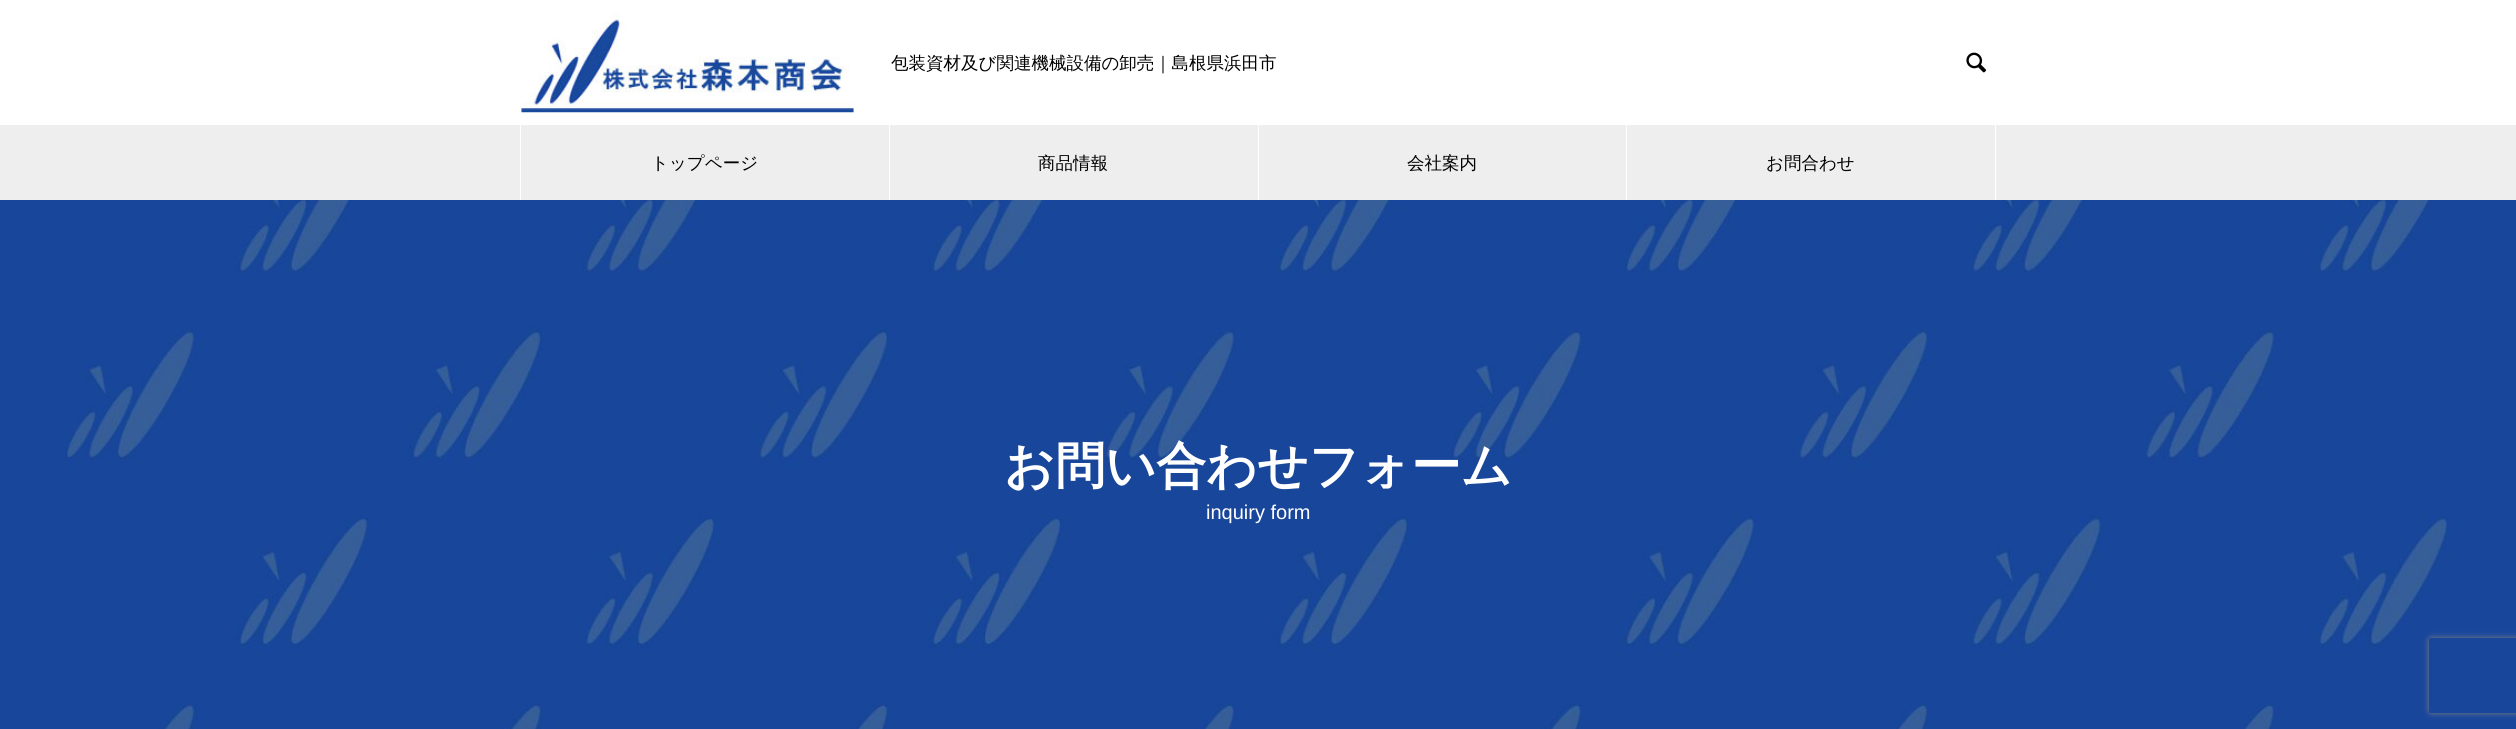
import math
import cairo

surface = cairo.ImageSurface(cairo.FORMAT_RGB24, 2516, 729)
ctx = cairo.Context(surface)
options = cairo.FontOptions()
options.set_hint_metrics(cairo.HINT_METRICS_OFF)
options.set_hint_style(cairo.HINT_STYLE_NONE)
ctx.set_font_options(options)
ctx.set_miter_limit(4)


def set_color(code):
    ctx.set_source_rgb(*(v / 255 for v in bytes.fromhex(code[-6:])))


def draw_text(x, y, s, family, size, color, bold=False, italic=False):
    ctx.select_font_face(family, cairo.FONT_SLANT_ITALIC if italic else cairo.FONT_SLANT_NORMAL, cairo.FONT_WEIGHT_BOLD if bold else cairo.FONT_WEIGHT_NORMAL)
    ctx.set_font_size(size)
    set_color(color)
    ctx.move_to(x, y)
    ctx.show_text(s)


def fill_rect(x, y, w, h, color):
    set_color(color)
    ctx.rectangle(x, y, w, h)
    ctx.fill()


def rounded_rect(x, y, w, h, r):
    ctx.new_sub_path()
    for i, (u, v) in enumerate([(x + w - r, y + h - r), (x + r, y + h - r), (x + r, y + r), (x + w - r, y + r)]):
        ctx.arc(u, v, r, i * math.pi / 2, (i + 1) * math.pi / 2)
    ctx.close_path()


def draw_shadow(x, y, w, h, r, blur, alpha):
    ctx.push_group_with_content(cairo.CONTENT_ALPHA)
    ctx.set_operator(cairo.OPERATOR_SOURCE)
    for i in range(15, -16, -2):
        e = blur * i / 6
        if min(w, h) + 2 * e > 0:
            ctx.set_source_rgba(0, 0, 0, alpha * math.erfc((i - 1) / 8.5) / 2)
            rounded_rect(x - e, y - e, w + 2 * e, h + 2 * e, max(0, min(r + e + blur * .6, min(w, h) / 2 + e)))
            ctx.fill()
    ctx.mask(ctx.pop_group())


def draw_image(path, x, y, w, h):
    ctx.save()
    ctx.set_source_surface(cairo.ImageSurface.create_from_png(path), x, y)
    ctx.rectangle(x, y, w, h)
    ctx.fill()
    ctx.restore()


set_color("#ffffff")
ctx.paint()
draw_image("assets/img1.png", 521, 13, 333, 100)
draw_text(891, 69, "包装資材及び関連機械設備の卸売｜島根県浜田市", "WenQuanYi Zen Hei Medium", 17.5, "#000000")
draw_image("assets/img2.png", 1966, 52, 21, 21)
fill_rect(0, 125, 2516, 75, "#eeeeee")
fill_rect(889, 125, 1, 75, "#ffffff")
fill_rect(520, 125, 1, 75, "#ffffff")
draw_text(651, 169, "トップページ", "WenQuanYi Zen Hei Medium", 17.5, "#000000")
fill_rect(1258, 125, 1, 75, "#ffffff")
draw_text(1038, 169, "商品情報", "WenQuanYi Zen Hei Medium", 17.5, "#000000")
draw_text(1407, 169, "会社案内", "WenQuanYi Zen Hei Medium", 17.5, "#000000")
fill_rect(1995, 125, 1, 75, "#ffffff")
fill_rect(1626, 125, 1, 75, "#ffffff")
draw_text(1766, 169, "お問合わせ", "WenQuanYi Zen Hei Medium", 17.5, "#000000")
draw_image("assets/img3.png", 0, 200, 2516, 529)
draw_text(1004, 483, "お問い合わせフォーム", "WenQuanYi Zen Hei", 50, "#ffffff", bold=True)
draw_text(1206, 519, "inquiry form", "Liberation Sans", 20, "#ffffff")
ctx.save()
ctx.set_fill_rule(cairo.FILL_RULE_EVEN_ODD)
ctx.new_path()
ctx.move_to(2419, 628)
ctx.line_to(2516, 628)
ctx.line_to(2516, 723)
ctx.line_to(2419, 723)
ctx.close_path()
ctx.move_to(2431.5, 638)
ctx.line_to(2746.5, 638)
ctx.curve_to(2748, 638, 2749, 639, 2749, 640.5)
ctx.line_to(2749, 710.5)
ctx.curve_to(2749, 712, 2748, 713, 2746.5, 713)
ctx.line_to(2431.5, 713)
ctx.curve_to(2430, 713, 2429, 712, 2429, 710.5)
ctx.line_to(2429, 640.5)
ctx.curve_to(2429, 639, 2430, 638, 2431.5, 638)
ctx.close_path()
ctx.clip()
set_color("#808080")
draw_shadow(2429, 638, 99, 75, 2.5, 3, 1)
ctx.restore()
surface.write_to_png("output.png")
